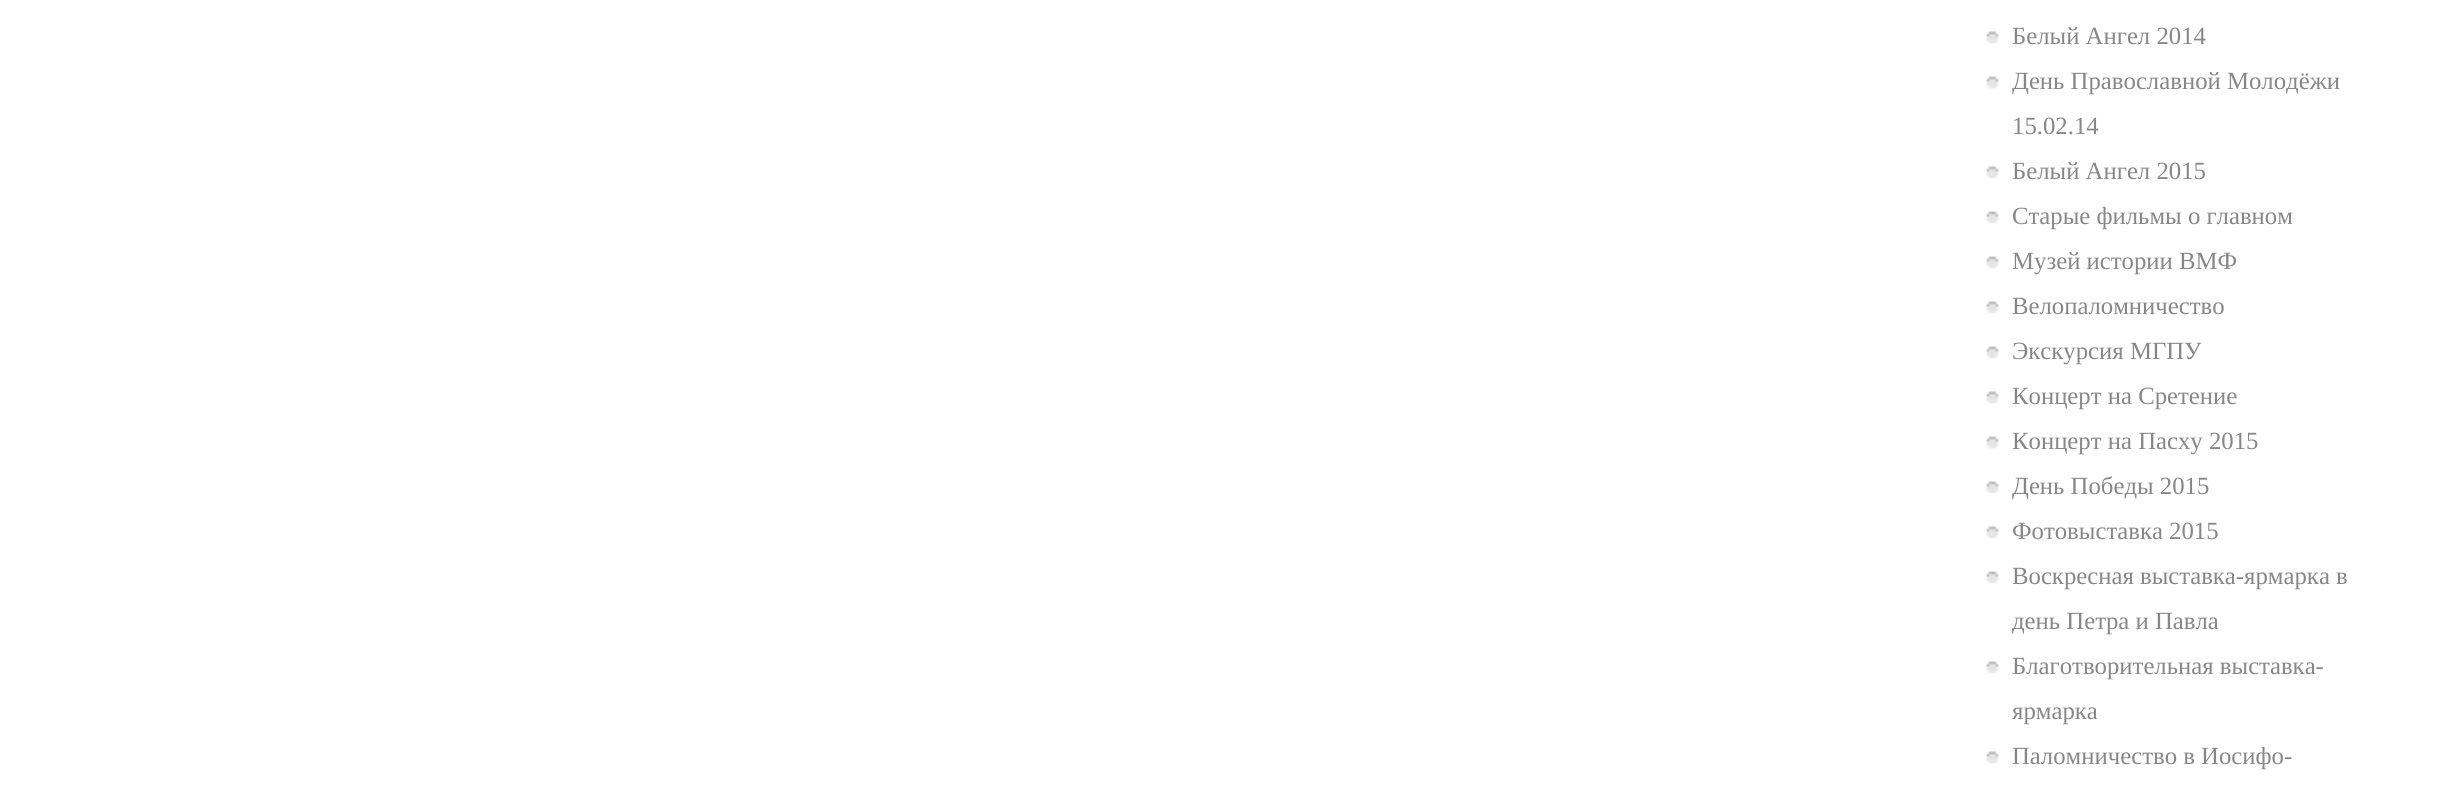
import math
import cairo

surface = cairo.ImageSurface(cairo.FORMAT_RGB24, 2460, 801)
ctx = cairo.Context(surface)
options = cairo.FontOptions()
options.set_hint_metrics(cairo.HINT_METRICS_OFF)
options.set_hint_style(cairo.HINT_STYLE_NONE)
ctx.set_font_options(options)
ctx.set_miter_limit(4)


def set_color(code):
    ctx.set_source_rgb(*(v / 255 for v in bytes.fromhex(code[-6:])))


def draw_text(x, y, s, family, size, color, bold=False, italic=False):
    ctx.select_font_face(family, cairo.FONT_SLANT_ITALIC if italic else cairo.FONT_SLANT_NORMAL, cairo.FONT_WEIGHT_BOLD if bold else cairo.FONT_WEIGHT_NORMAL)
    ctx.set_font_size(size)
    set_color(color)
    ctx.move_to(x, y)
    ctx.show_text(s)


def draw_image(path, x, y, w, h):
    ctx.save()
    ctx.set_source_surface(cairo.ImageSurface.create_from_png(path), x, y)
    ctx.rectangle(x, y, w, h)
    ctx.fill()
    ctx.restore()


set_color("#ffffff")
ctx.paint()
draw_image("assets/img1.png", 1986, 31, 13, 13)
draw_text(2012, 44, "Белый Ангел 2014", "Liberation Serif", 24.75, "#878787")
draw_image("assets/img1.png", 1986, 76, 13, 13)
draw_text(2012, 89, "День Православной Молодёжи", "Liberation Serif", 24.75, "#878787")
draw_text(2012, 134, "15.02.14", "Liberation Serif", 24.75, "#878787")
draw_image("assets/img1.png", 1986, 166, 13, 13)
draw_text(2012, 179, "Белый Ангел 2015", "Liberation Serif", 24.75, "#878787")
draw_image("assets/img1.png", 1986, 211, 13, 13)
draw_text(2012, 224, "Старые фильмы о главном", "Liberation Serif", 24.75, "#878787")
draw_image("assets/img1.png", 1986, 256, 13, 13)
draw_text(2012, 269, "Музей истории ВМФ", "Liberation Serif", 24.75, "#878787")
draw_image("assets/img1.png", 1986, 301, 13, 13)
draw_text(2012, 314, "Велопаломничество", "Liberation Serif", 24.75, "#878787")
draw_image("assets/img1.png", 1986, 346, 13, 13)
draw_text(2012, 359, "Экскурсия МГПУ", "Liberation Serif", 24.75, "#878787")
draw_image("assets/img1.png", 1986, 391, 13, 13)
draw_text(2012, 404, "Концерт на Сретение", "Liberation Serif", 24.75, "#878787")
draw_image("assets/img1.png", 1986, 436, 13, 13)
draw_text(2012, 449, "Концерт на Пасху 2015", "Liberation Serif", 24.75, "#878787")
draw_image("assets/img1.png", 1986, 481, 13, 13)
draw_text(2012, 494, "День Победы 2015", "Liberation Serif", 24.75, "#878787")
draw_image("assets/img1.png", 1986, 526, 13, 13)
draw_text(2012, 539, "Фотовыставка 2015", "Liberation Serif", 24.75, "#878787")
draw_image("assets/img1.png", 1986, 571, 13, 13)
draw_text(2012, 584, "Воскресная выставка-ярмарка в", "Liberation Serif", 24.75, "#878787")
draw_text(2012, 629, "день Петра и Павла", "Liberation Serif", 24.75, "#878787")
draw_image("assets/img1.png", 1986, 661, 13, 13)
draw_text(2012, 674, "Благотворительная выставка-", "Liberation Serif", 24.75, "#878787")
draw_text(2012, 719, "ярмарка", "Liberation Serif", 24.75, "#878787")
draw_image("assets/img1.png", 1986, 751, 13, 13)
draw_text(2012, 764, "Паломничество в Иосифо-", "Liberation Serif", 24.75, "#878787")
surface.write_to_png("output.png")
